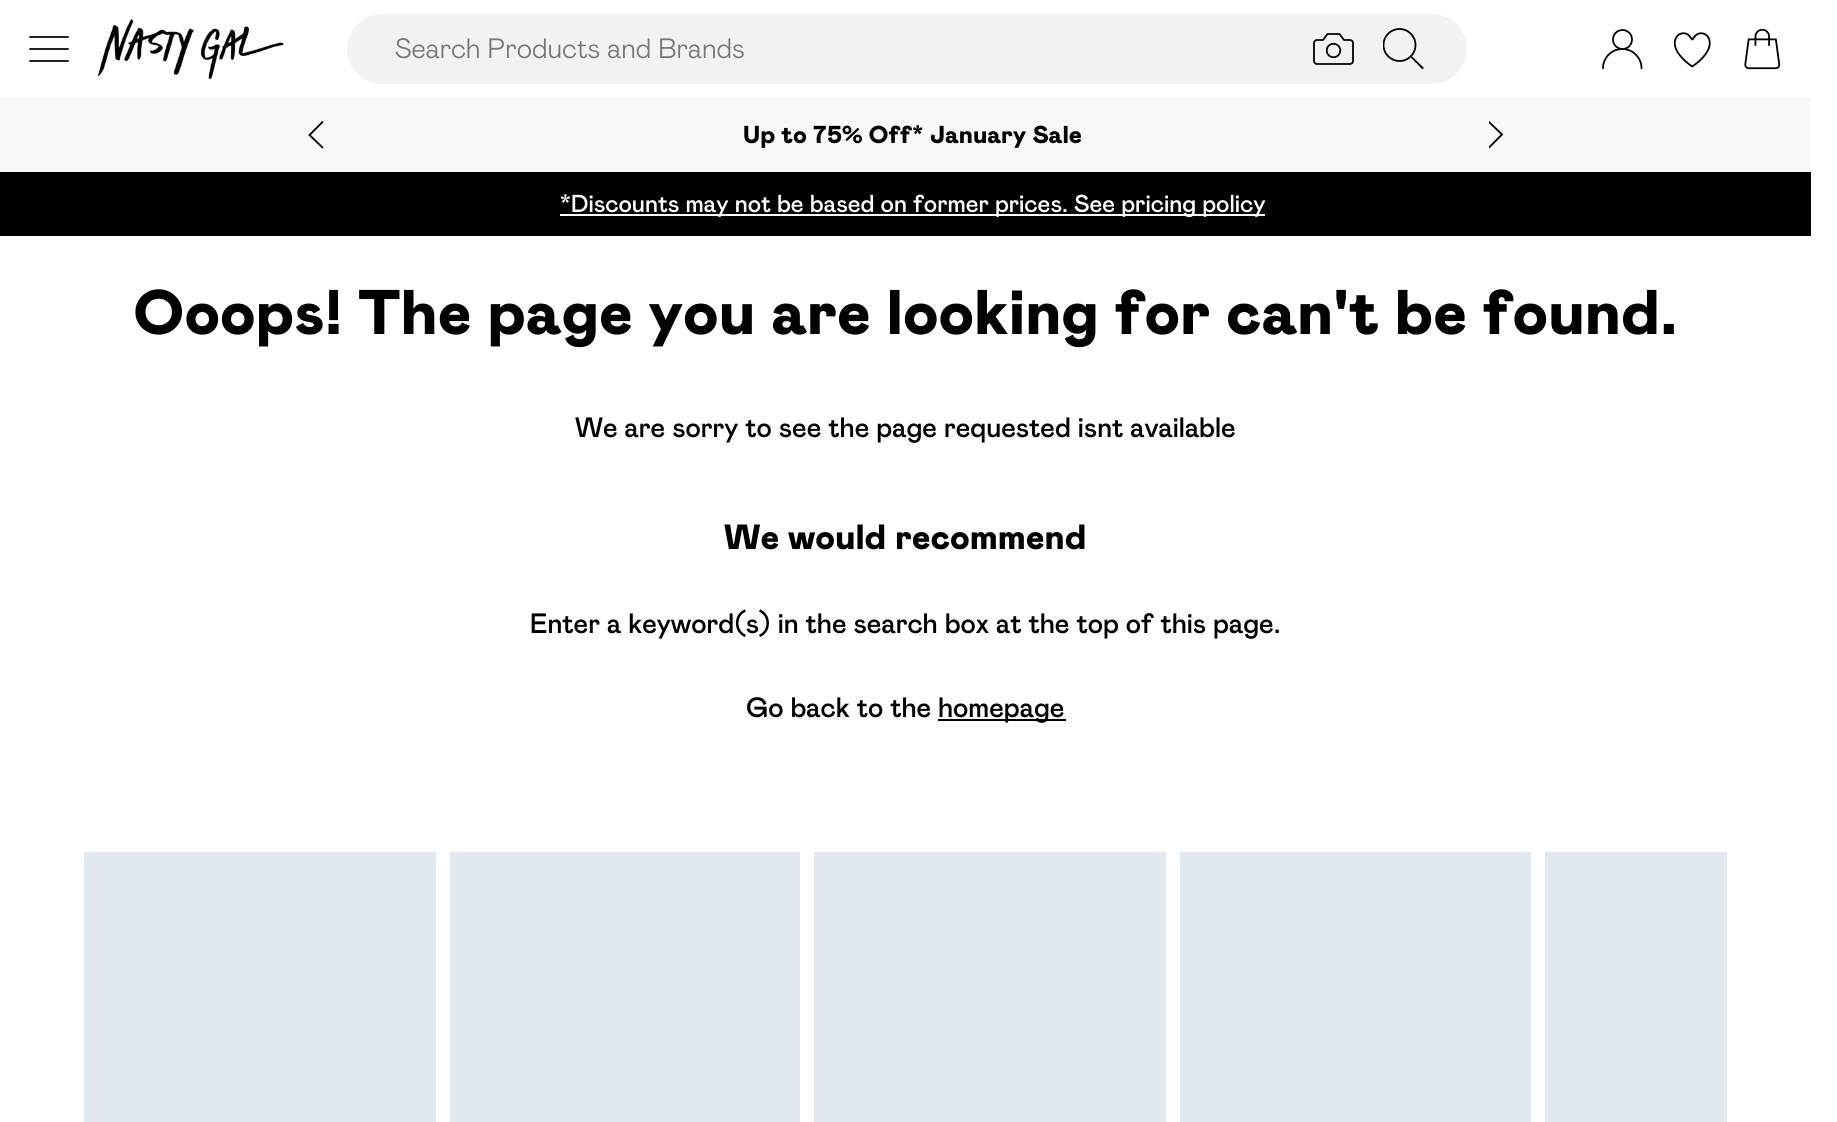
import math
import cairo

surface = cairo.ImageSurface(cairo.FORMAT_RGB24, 1837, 1122)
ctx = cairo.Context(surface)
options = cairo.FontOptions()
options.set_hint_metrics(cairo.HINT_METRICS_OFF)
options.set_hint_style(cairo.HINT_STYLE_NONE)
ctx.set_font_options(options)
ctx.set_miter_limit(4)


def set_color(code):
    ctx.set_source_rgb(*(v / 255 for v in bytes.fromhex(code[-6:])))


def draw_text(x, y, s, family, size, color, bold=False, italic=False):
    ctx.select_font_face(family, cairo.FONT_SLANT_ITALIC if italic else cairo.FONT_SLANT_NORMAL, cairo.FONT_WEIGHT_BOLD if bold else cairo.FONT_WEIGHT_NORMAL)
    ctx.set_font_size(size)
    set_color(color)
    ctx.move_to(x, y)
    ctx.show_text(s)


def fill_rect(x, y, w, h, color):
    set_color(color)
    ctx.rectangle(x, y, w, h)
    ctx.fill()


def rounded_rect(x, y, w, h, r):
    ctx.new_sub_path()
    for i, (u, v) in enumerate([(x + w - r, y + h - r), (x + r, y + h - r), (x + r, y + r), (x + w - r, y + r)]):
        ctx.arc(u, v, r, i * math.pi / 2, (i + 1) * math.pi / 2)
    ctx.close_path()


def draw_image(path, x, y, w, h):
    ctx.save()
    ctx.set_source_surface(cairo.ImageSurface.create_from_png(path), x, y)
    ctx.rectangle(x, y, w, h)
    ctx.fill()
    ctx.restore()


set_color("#ffffff")
ctx.paint()
ctx.new_path()
ctx.move_to(68, 49)
ctx.line_to(30, 49)
ctx.move_to(68, 61)
ctx.line_to(30, 61)
ctx.move_to(68, 37)
ctx.line_to(30, 37)
set_color("#000000")
ctx.set_line_width(1.8)
ctx.set_line_cap(cairo.LINE_CAP_ROUND)
ctx.stroke()
draw_image("assets/img1.png", 98, 19, 186, 60)
set_color("#f2f2f2")
rounded_rect(347, 14, 1120, 70, 35)
ctx.fill()
draw_text(395, 58, "Search Products and Brands", "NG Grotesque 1", 28, "#767676")
draw_image("assets/img2.png", 1313, 33, 41, 32)
ctx.save()
ctx.rectangle(1383, 28, 42, 42)
ctx.clip()
ctx.arc(1399.5, 45, 16, 0, 2 * math.pi)
set_color("#000000")
ctx.set_line_cap(cairo.LINE_CAP_BUTT)
ctx.stroke()
ctx.restore()
set_color("#000000")
ctx.new_path()
ctx.move_to(1422, 69)
ctx.curve_to(1423, 69.5, 1424, 68.5, 1423.5, 67.5)
ctx.close_path()
ctx.move_to(1423.5, 67.5)
ctx.line_to(1411, 55.5)
ctx.line_to(1410, 56.5)
ctx.line_to(1422, 69)
ctx.close_path()
ctx.fill()
draw_image("assets/img3.png", 1602, 29, 41, 41)
draw_image("assets/img4.png", 1673, 32, 38, 36)
draw_image("assets/img5.png", 1744, 28, 37, 42)
fill_rect(0, 98, 1811, 74, "#f8f8f8")
ctx.new_path()
ctx.move_to(322.5, 122)
ctx.line_to(309.5, 135)
ctx.line_to(322.5, 147.5)
set_color("#000000")
ctx.stroke()
draw_text(743, 143, "Up to 75% Off* January Sale", "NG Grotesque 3", 24.5, "#000000")
ctx.save()
ctx.rectangle(1489, 121, 16, 28)
ctx.clip()
ctx.new_path()
ctx.move_to(1489, 147.5)
ctx.line_to(1502, 134.5)
ctx.line_to(1489, 122)
ctx.stroke()
ctx.restore()
fill_rect(0, 172, 1811, 64, "#000000")
fill_rect(560, 214, 705, 2, "#ffffff")
draw_text(560, 212, "*Discounts may not be based on former prices. See pricing policy", "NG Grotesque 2", 24.5, "#ffffff")
draw_text(133, 334, "Ooops! The page you are looking for can't be found.", "NG Grotesque 3", 63, "#000000")
draw_text(575, 437, "We are sorry to see the page requested isnt available", "NG Grotesque 2", 28, "#000000")
draw_text(724, 549, "We would recommend", "NG Grotesque 3", 35, "#000000")
draw_text(530, 633, "Enter a keyword(s) in the search box at the top of this page.", "NG Grotesque 2", 28, "#000000")
draw_text(746, 717, "Go back to the", "NG Grotesque 2", 28, "#000000")
fill_rect(938, 719, 128, 2, "#000000")
draw_text(938, 717, "homepage", "NG Grotesque 2", 28, "#000000")
fill_rect(84, 852, 352, 270, "#e2e8f0")
fill_rect(450, 852, 350, 270, "#e2e8f0")
fill_rect(814, 852, 352, 270, "#e2e8f0")
fill_rect(1180, 852, 351, 270, "#e2e8f0")
fill_rect(1545, 852, 182, 270, "#e2e8f0")
surface.write_to_png("output.png")
